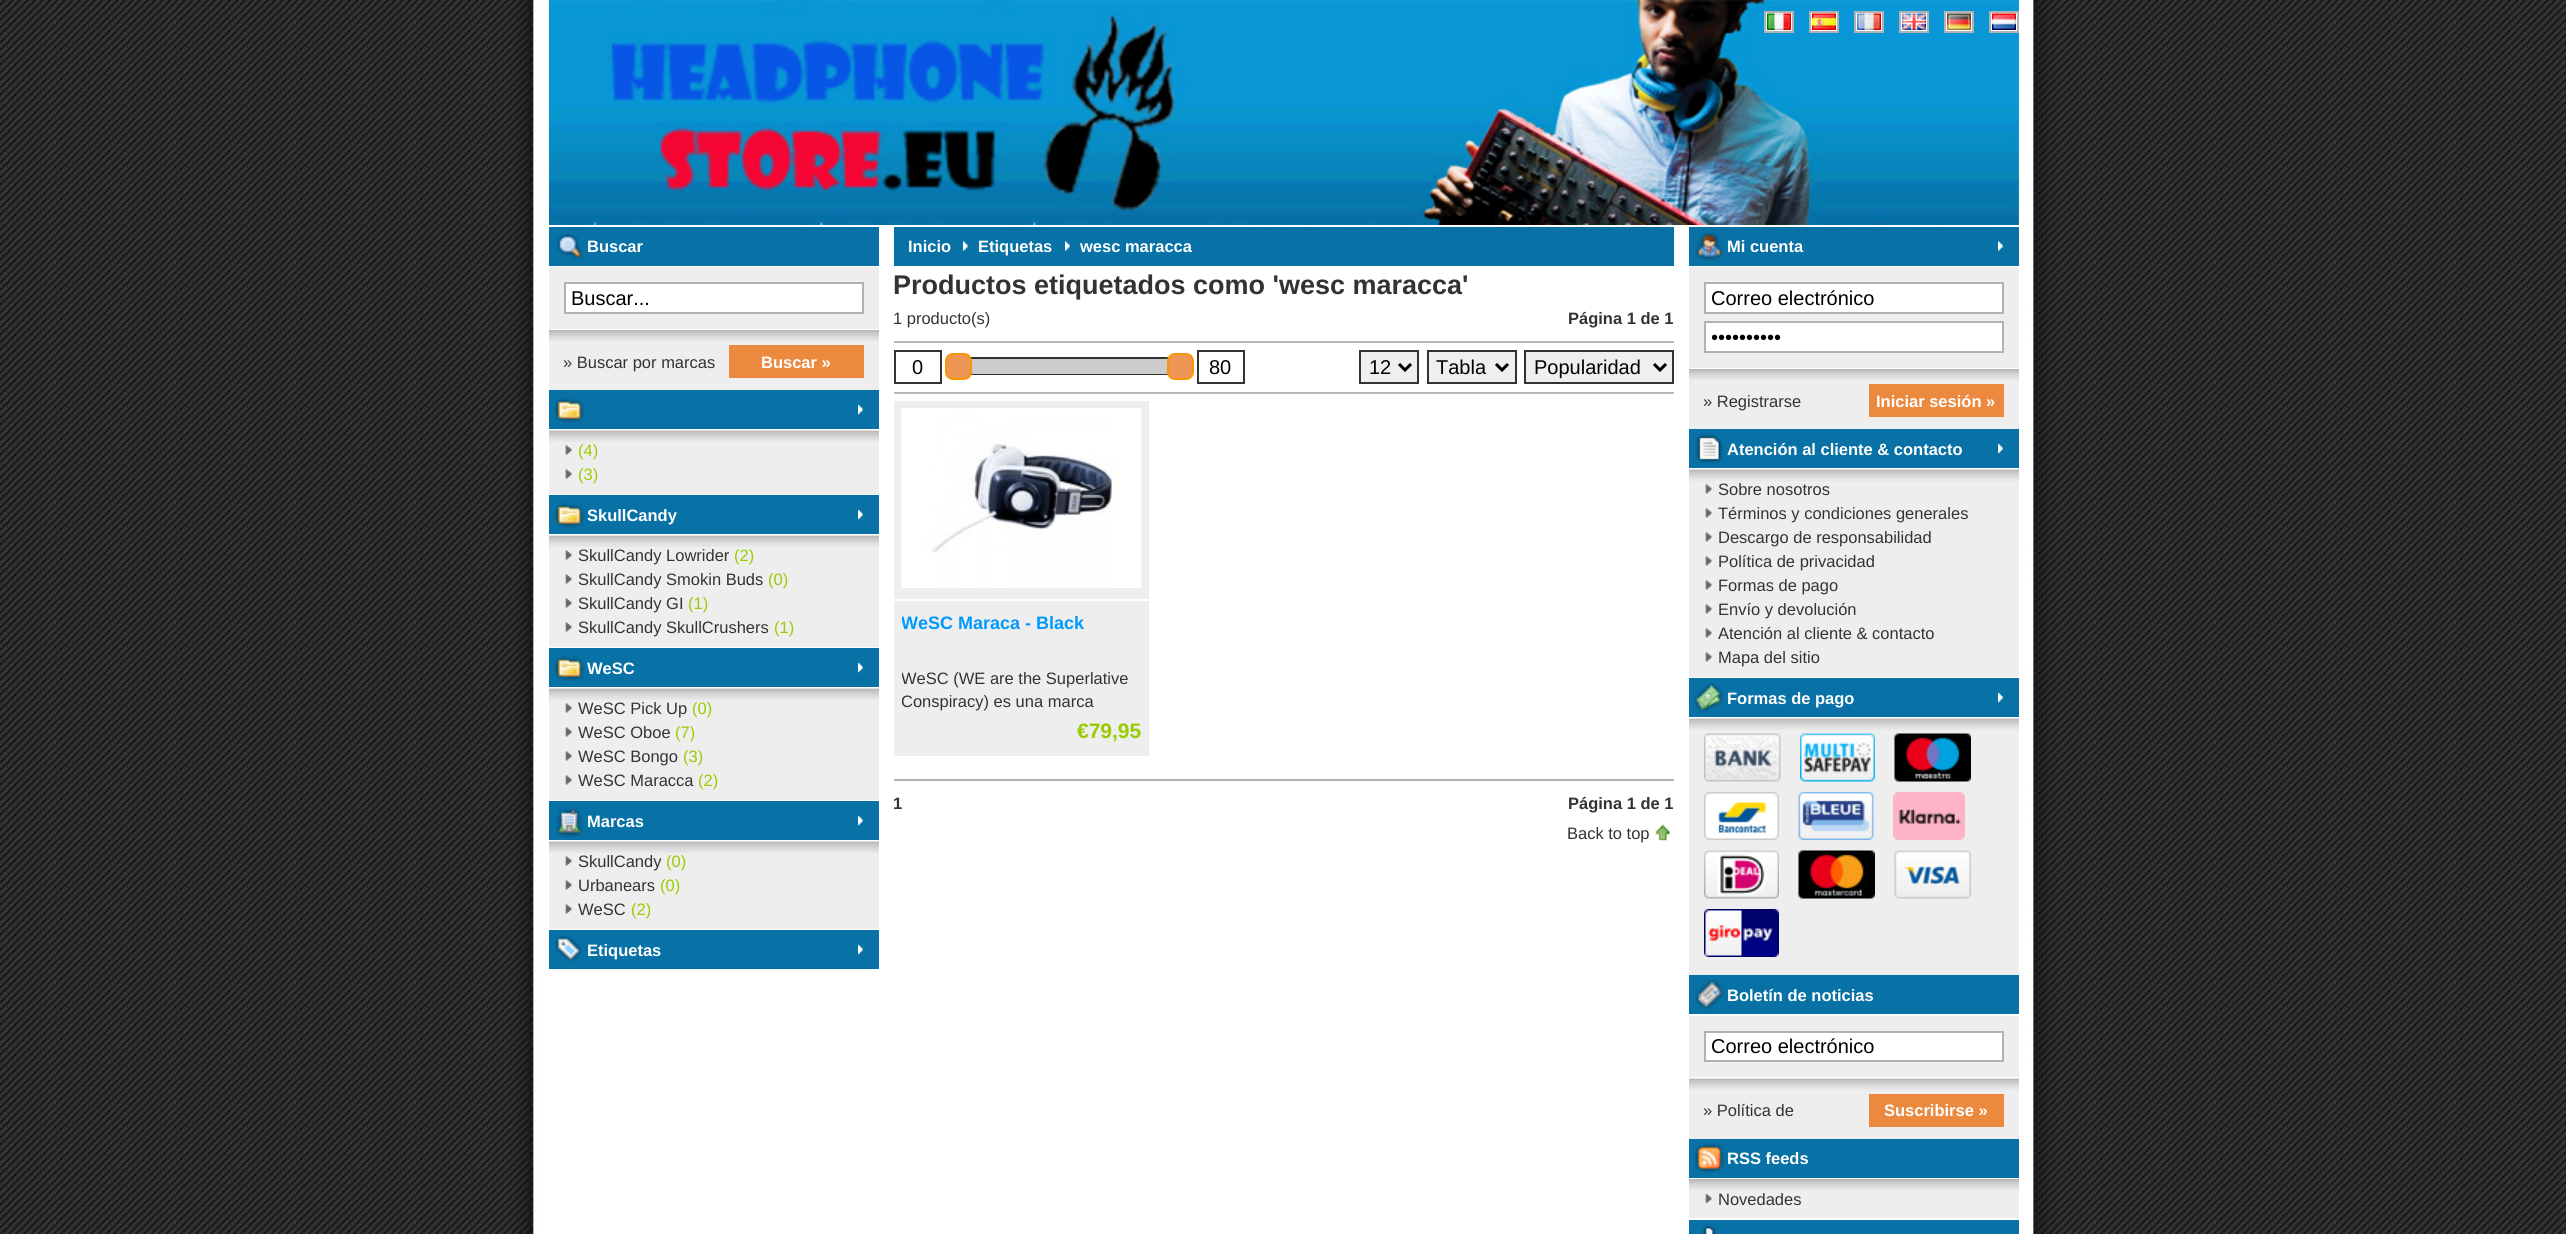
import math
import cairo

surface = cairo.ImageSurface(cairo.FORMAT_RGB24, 2566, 1234)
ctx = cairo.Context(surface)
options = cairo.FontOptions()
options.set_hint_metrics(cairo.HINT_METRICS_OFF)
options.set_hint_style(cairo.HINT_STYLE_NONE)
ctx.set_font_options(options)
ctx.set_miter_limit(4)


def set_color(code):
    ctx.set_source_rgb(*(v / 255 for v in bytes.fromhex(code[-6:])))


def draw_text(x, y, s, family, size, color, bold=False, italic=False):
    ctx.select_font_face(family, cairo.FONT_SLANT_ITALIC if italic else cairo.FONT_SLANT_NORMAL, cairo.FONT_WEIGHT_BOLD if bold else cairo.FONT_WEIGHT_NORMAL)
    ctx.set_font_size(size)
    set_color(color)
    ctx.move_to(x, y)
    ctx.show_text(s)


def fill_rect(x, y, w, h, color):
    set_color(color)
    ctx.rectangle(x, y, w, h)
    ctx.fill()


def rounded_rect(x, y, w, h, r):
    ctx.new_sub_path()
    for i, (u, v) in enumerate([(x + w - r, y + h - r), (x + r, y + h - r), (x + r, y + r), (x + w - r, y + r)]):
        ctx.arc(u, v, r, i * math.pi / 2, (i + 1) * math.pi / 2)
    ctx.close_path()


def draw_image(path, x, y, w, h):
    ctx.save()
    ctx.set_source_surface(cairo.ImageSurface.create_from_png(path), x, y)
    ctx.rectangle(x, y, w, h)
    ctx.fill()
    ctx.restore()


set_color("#ffffff")
ctx.paint()
draw_image("assets/img1.png", 0, 0, 2566, 1234)
draw_image("assets/img2.png", 549, 0, 1470, 225)
set_color("#ffffff")
ctx.rectangle(1765, 12, 28, 20)
ctx.fill_preserve()
set_color("#b2b2b2")
ctx.stroke()
draw_image("assets/img3.png", 1767, 13, 24, 17)
set_color("#ffffff")
ctx.rectangle(1810, 12, 28, 20)
ctx.fill_preserve()
set_color("#b2b2b2")
ctx.stroke()
draw_image("assets/img4.png", 1812, 13, 24, 17)
set_color("#ffffff")
ctx.rectangle(1855, 12, 28, 20)
ctx.fill_preserve()
set_color("#b2b2b2")
ctx.stroke()
draw_image("assets/img5.png", 1857, 13, 24, 17)
set_color("#ffffff")
ctx.rectangle(1900, 12, 28, 20)
ctx.fill_preserve()
set_color("#b2b2b2")
ctx.stroke()
draw_image("assets/img6.png", 1902, 13, 24, 17)
set_color("#ffffff")
ctx.rectangle(1945, 12, 28, 20)
ctx.fill_preserve()
set_color("#b2b2b2")
ctx.stroke()
draw_image("assets/img7.png", 1947, 13, 24, 17)
set_color("#ffffff")
ctx.rectangle(1990, 12, 28, 20)
ctx.fill_preserve()
set_color("#b2b2b2")
ctx.stroke()
draw_image("assets/img8.png", 1992, 13, 24, 17)
fill_rect(549, 227, 330, 39, "#0871a5")
draw_image("assets/img9.png", 556, 234, 27, 26)
draw_text(587, 252, "Buscar", "Liberation Sans", 16.5, "#ffffff", bold=True)
fill_rect(549, 267, 330, 62, "#eeeeee")
set_color("#ffffff")
ctx.rectangle(565, 283, 298, 30)
ctx.fill_preserve()
set_color("#b2b2b2")
ctx.stroke()
draw_text(571, 305, "Buscar...", "Liberation Sans", 20, "#000000")
fill_rect(549, 330, 330, 60, "#eeeeee")
draw_image("assets/img10.png", 549, 330, 330, 11)
draw_text(563, 368, "» Buscar por marcas", "Liberation Sans", 16.5, "#333333")
fill_rect(729, 345, 135, 33, "#eb8a3f")
draw_text(761, 368, "Buscar »", "Liberation Sans", 16.5, "#ffffff", bold=True)
fill_rect(549, 390, 330, 39, "#0871a5")
draw_image("assets/img11.png", 554, 397, 31, 26)
draw_image("assets/img12.png", 858, 404, 5, 11)
fill_rect(549, 431, 330, 63, "#eeeeee")
draw_image("assets/img13.png", 549, 430, 330, 12)
draw_image("assets/img14.png", 565, 445, 7, 10)
draw_text(578, 456, "(4)", "Liberation Sans", 16.5, "#99cc00")
draw_image("assets/img14.png", 565, 469, 7, 10)
draw_text(578, 480, "(3)", "Liberation Sans", 16.5, "#99cc00")
fill_rect(549, 495, 330, 39, "#0871a5")
draw_image("assets/img11.png", 554, 502, 31, 26)
draw_image("assets/img12.png", 858, 509, 5, 11)
draw_text(587, 521, "SkullCandy", "Liberation Sans", 16.5, "#ffffff", bold=True)
fill_rect(549, 536, 330, 111, "#eeeeee")
draw_image("assets/img13.png", 549, 535, 330, 12)
draw_image("assets/img14.png", 565, 550, 7, 10)
draw_text(578, 561, "SkullCandy Lowrider", "Liberation Sans", 16.5, "#333333")
draw_text(734, 561, "(2)", "Liberation Sans", 16.5, "#99cc00")
draw_image("assets/img14.png", 565, 574, 7, 10)
draw_text(578, 585, "SkullCandy Smokin Buds", "Liberation Sans", 16.5, "#333333")
draw_text(768, 585, "(0)", "Liberation Sans", 16.5, "#99cc00")
draw_image("assets/img14.png", 565, 598, 7, 10)
draw_text(578, 609, "SkullCandy GI", "Liberation Sans", 16.5, "#333333")
draw_text(688, 609, "(1)", "Liberation Sans", 16.5, "#99cc00")
draw_image("assets/img14.png", 565, 622, 7, 10)
draw_text(578, 633, "SkullCandy SkullCrushers", "Liberation Sans", 16.5, "#333333")
draw_text(774, 633, "(1)", "Liberation Sans", 16.5, "#99cc00")
fill_rect(549, 648, 330, 39, "#0871a5")
draw_image("assets/img11.png", 554, 655, 31, 26)
draw_image("assets/img12.png", 858, 662, 5, 11)
draw_text(587, 674, "WeSC", "Liberation Sans", 16.5, "#ffffff", bold=True)
fill_rect(549, 689, 330, 111, "#eeeeee")
draw_image("assets/img13.png", 549, 688, 330, 12)
draw_image("assets/img14.png", 565, 703, 7, 10)
draw_text(578, 714, "WeSC Pick Up", "Liberation Sans", 16.5, "#333333")
draw_text(692, 714, "(0)", "Liberation Sans", 16.5, "#99cc00")
draw_image("assets/img14.png", 565, 727, 7, 10)
draw_text(578, 738, "WeSC Oboe", "Liberation Sans", 16.5, "#333333")
draw_text(675, 738, "(7)", "Liberation Sans", 16.5, "#99cc00")
draw_image("assets/img14.png", 565, 751, 7, 10)
draw_text(578, 762, "WeSC Bongo", "Liberation Sans", 16.5, "#333333")
draw_text(683, 762, "(3)", "Liberation Sans", 16.5, "#99cc00")
draw_image("assets/img14.png", 565, 775, 7, 10)
draw_text(578, 786, "WeSC Maracca", "Liberation Sans", 16.5, "#333333")
draw_text(698, 786, "(2)", "Liberation Sans", 16.5, "#99cc00")
fill_rect(549, 801, 330, 39, "#0871a5")
draw_image("assets/img15.png", 555, 808, 28, 29)
draw_image("assets/img12.png", 858, 815, 5, 11)
draw_text(587, 827, "Marcas", "Liberation Sans", 16.5, "#ffffff", bold=True)
fill_rect(549, 842, 330, 87, "#eeeeee")
draw_image("assets/img13.png", 549, 841, 330, 12)
draw_image("assets/img14.png", 565, 856, 7, 10)
draw_text(578, 867, "SkullCandy", "Liberation Sans", 16.5, "#333333")
draw_text(666, 867, "(0)", "Liberation Sans", 16.5, "#99cc00")
draw_image("assets/img14.png", 565, 880, 7, 10)
draw_text(578, 891, "Urbanears", "Liberation Sans", 16.5, "#333333")
draw_text(660, 891, "(0)", "Liberation Sans", 16.5, "#99cc00")
draw_image("assets/img14.png", 565, 904, 7, 10)
draw_text(578, 915, "WeSC", "Liberation Sans", 16.5, "#333333")
draw_text(631, 915, "(2)", "Liberation Sans", 16.5, "#99cc00")
fill_rect(549, 930, 330, 39, "#0871a5")
draw_image("assets/img16.png", 554, 934, 28, 28)
draw_image("assets/img12.png", 858, 944, 5, 11)
draw_text(587, 956, "Etiquetas", "Liberation Sans", 16.5, "#ffffff", bold=True)
fill_rect(894, 227, 780, 39, "#0871a5")
draw_text(908, 252, "Inicio", "Liberation Sans", 16.5, "#ffffff", bold=True)
draw_image("assets/img17.png", 963, 241, 5, 10)
draw_text(978, 252, "Etiquetas", "Liberation Sans", 16.5, "#ffffff", bold=True)
draw_image("assets/img18.png", 1065, 241, 5, 10)
draw_text(1080, 252, "wesc maracca", "Liberation Sans", 16.5, "#ffffff", bold=True)
draw_text(893, 294, "Productos etiquetados como 'wesc maracca'", "Liberation Sans", 27, "#333333", bold=True)
draw_text(893, 324, "1 producto(s)", "Liberation Sans", 16.5, "#333333")
draw_text(1568, 324, "Página 1 de 1", "Liberation Sans", 16.5, "#333333", bold=True)
fill_rect(894, 341, 780, 2, "#b9b9b9")
fill_rect(894, 392, 780, 2, "#b9b9b9")
ctx.rectangle(895, 351, 46, 32)
set_color("#333333")
ctx.stroke()
draw_text(912, 374, "0", "Liberation Sans", 20, "#000000")
ctx.rectangle(958, 358, 223, 16)
set_color("#333333")
ctx.stroke()
fill_rect(971, 359, 197, 15, "#cccccc")
set_color("#ed9552")
rounded_rect(946, 354, 25, 25, 7)
ctx.fill_preserve()
set_color("#fa9507")
ctx.stroke()
set_color("#ed9552")
rounded_rect(1168, 354, 25, 25, 7)
ctx.fill_preserve()
set_color("#fa9507")
ctx.stroke()
ctx.rectangle(1198, 351, 46, 32)
set_color("#333333")
ctx.stroke()
draw_text(1209, 374, "80", "Liberation Sans", 20, "#000000")
set_color("#efefef")
ctx.rectangle(1360, 351, 58, 32)
ctx.fill_preserve()
set_color("#333333")
ctx.stroke()
ctx.new_path()
ctx.move_to(1399, 364)
ctx.line_to(1405, 370)
ctx.line_to(1411, 364)
set_color("#000000")
ctx.set_line_width(3)
ctx.stroke()
draw_text(1369, 374, "12", "Liberation Sans", 20, "#000000")
set_color("#efefef")
ctx.rectangle(1428, 351, 88, 32)
ctx.fill_preserve()
set_color("#333333")
ctx.set_line_width(2)
ctx.stroke()
ctx.new_path()
ctx.move_to(1496, 364)
ctx.line_to(1502, 370)
ctx.line_to(1508, 364)
set_color("#000000")
ctx.set_line_width(3)
ctx.stroke()
draw_text(1436, 374, "Tabla", "Liberation Sans", 20, "#000000")
set_color("#efefef")
ctx.rectangle(1525, 351, 148, 32)
ctx.fill_preserve()
set_color("#333333")
ctx.set_line_width(2)
ctx.stroke()
ctx.new_path()
ctx.move_to(1654, 364)
ctx.line_to(1660, 370)
ctx.line_to(1666, 364)
set_color("#000000")
ctx.set_line_width(3)
ctx.stroke()
draw_text(1534, 374, "Popularidad", "Liberation Sans", 20, "#000000")
fill_rect(894, 401, 255, 355, "#eeeeee")
draw_image("assets/img19.png", 901, 408, 241, 180)
fill_rect(894, 599, 255, 2, "#ffffff")
ctx.save()
ctx.rectangle(902, 608, 240, 60)
ctx.clip()
draw_text(901, 629, "WeSC Maraca - Black", "Liberation Sans", 18, "#0099ff", bold=True)
ctx.restore()
ctx.save()
ctx.rectangle(902, 668, 240, 45)
ctx.clip()
draw_text(901, 684, "WeSC (WE are the Superlative", "Liberation Sans", 16.5, "#333333")
draw_text(901, 707, "Conspiracy) es una marca", "Liberation Sans", 16.5, "#333333")
ctx.restore()
draw_text(1077, 738, "€79,95", "Liberation Sans", 21, "#99cc00", bold=True)
fill_rect(894, 779, 780, 2, "#b2b2b2")
draw_text(893, 809, "1", "Liberation Sans", 16.5, "#333333", bold=True)
draw_text(1568, 809, "Página 1 de 1", "Liberation Sans", 16.5, "#333333", bold=True)
draw_image("assets/img20.png", 1655, 824, 15, 17)
draw_text(1567, 839, "Back to top", "Liberation Sans", 16.5, "#333333")
fill_rect(1689, 227, 330, 39, "#0871a5")
draw_image("assets/img21.png", 1695, 232, 28, 29)
draw_image("assets/img18.png", 1998, 241, 5, 10)
draw_text(1727, 252, "Mi cuenta", "Liberation Sans", 16.5, "#ffffff", bold=True)
fill_rect(1689, 267, 330, 101, "#eeeeee")
set_color("#ffffff")
ctx.rectangle(1705, 283, 298, 30)
ctx.fill_preserve()
set_color("#b2b2b2")
ctx.set_line_width(2)
ctx.stroke()
ctx.save()
ctx.rectangle(1712, 287, 285, 22)
ctx.clip()
draw_text(1711, 305, "Correo electrónico", "Liberation Sans", 20, "#000000")
ctx.restore()
set_color("#ffffff")
ctx.rectangle(1705, 322, 298, 30)
ctx.fill_preserve()
set_color("#b2b2b2")
ctx.stroke()
ctx.save()
ctx.rectangle(1712, 326, 285, 22)
ctx.clip()
draw_text(1711, 344, "••••••••••", "Liberation Sans", 20, "#000000")
ctx.restore()
fill_rect(1689, 369, 330, 60, "#eeeeee")
draw_image("assets/img10.png", 1689, 369, 330, 11)
draw_text(1703, 407, "» Registrarse", "Liberation Sans", 16.5, "#333333")
fill_rect(1869, 384, 135, 33, "#eb8a3f")
draw_text(1876, 407, "Iniciar sesión »", "Liberation Sans", 16.5, "#ffffff", bold=True)
fill_rect(1689, 429, 330, 39, "#0871a5")
draw_image("assets/img22.png", 1695, 433, 28, 31)
draw_image("assets/img23.png", 1998, 443, 5, 11)
draw_text(1727, 455, "Atención al cliente & contacto", "Liberation Sans", 16.5, "#ffffff", bold=True)
fill_rect(1689, 470, 330, 207, "#eeeeee")
draw_image("assets/img13.png", 1689, 469, 330, 12)
draw_image("assets/img14.png", 1705, 484, 7, 10)
draw_text(1718, 495, "Sobre nosotros", "Liberation Sans", 16.5, "#333333")
draw_image("assets/img14.png", 1705, 508, 7, 10)
draw_text(1718, 519, "Términos y condiciones generales", "Liberation Sans", 16.5, "#333333")
draw_image("assets/img14.png", 1705, 532, 7, 10)
draw_text(1718, 543, "Descargo de responsabilidad", "Liberation Sans", 16.5, "#333333")
draw_image("assets/img14.png", 1705, 556, 7, 10)
draw_text(1718, 567, "Política de privacidad", "Liberation Sans", 16.5, "#333333")
draw_image("assets/img14.png", 1705, 580, 7, 10)
draw_text(1718, 591, "Formas de pago", "Liberation Sans", 16.5, "#333333")
draw_image("assets/img14.png", 1705, 604, 7, 10)
draw_text(1718, 615, "Envío y devolución", "Liberation Sans", 16.5, "#333333")
draw_image("assets/img14.png", 1705, 628, 7, 10)
draw_text(1718, 639, "Atención al cliente & contacto", "Liberation Sans", 16.5, "#333333")
draw_image("assets/img14.png", 1705, 652, 7, 10)
draw_text(1718, 663, "Mapa del sitio", "Liberation Sans", 16.5, "#333333")
fill_rect(1689, 678, 330, 39, "#0871a5")
draw_image("assets/img24.png", 1694, 682, 29, 31)
draw_image("assets/img23.png", 1998, 692, 5, 11)
draw_text(1727, 704, "Formas de pago", "Liberation Sans", 16.5, "#ffffff", bold=True)
fill_rect(1689, 719, 330, 256, "#eeeeee")
draw_image("assets/img13.png", 1689, 718, 330, 12)
draw_image("assets/img25.png", 1704, 733, 77, 49)
draw_image("assets/img26.png", 1800, 733, 75, 49)
draw_image("assets/img27.png", 1894, 733, 77, 49)
draw_image("assets/img28.png", 1704, 792, 75, 48)
draw_image("assets/img29.png", 1798, 792, 76, 48)
draw_image("assets/img30.png", 1893, 792, 72, 48)
draw_image("assets/img31.png", 1704, 850, 75, 49)
draw_image("assets/img32.png", 1798, 850, 77, 49)
draw_image("assets/img33.png", 1894, 850, 77, 49)
draw_image("assets/img34.png", 1704, 909, 75, 48)
fill_rect(1689, 975, 330, 39, "#0871a5")
draw_image("assets/img35.png", 1695, 980, 29, 30)
draw_text(1727, 1001, "Boletín de noticias", "Liberation Sans", 16.5, "#ffffff", bold=True)
fill_rect(1689, 1016, 330, 123, "#eeeeee")
fill_rect(1689, 1077, 330, 2, "#ffffff")
ctx.rectangle(1705, 1032, 298, 29)
ctx.fill_preserve()
set_color("#b2b2b2")
ctx.stroke()
ctx.save()
ctx.rectangle(1712, 1035, 285, 23)
ctx.clip()
draw_text(1711, 1053, "Correo electrónico", "Liberation Sans", 20, "#000000")
ctx.restore()
draw_image("assets/img13.png", 1689, 1078, 330, 12)
draw_text(1703, 1116, "» Política de", "Liberation Sans", 16.5, "#333333")
fill_rect(1869, 1094, 135, 33, "#eb8a3f")
draw_text(1884, 1116, "Suscribirse »", "Liberation Sans", 16.5, "#ffffff", bold=True)
fill_rect(1689, 1139, 330, 39, "#0871a5")
draw_image("assets/img36.png", 1694, 1143, 31, 30)
draw_text(1727, 1164, "RSS feeds", "Liberation Sans", 16.5, "#ffffff", bold=True)
fill_rect(1689, 1179, 330, 39, "#eeeeee")
draw_image("assets/img10.png", 1689, 1179, 330, 11)
draw_image("assets/img37.png", 1705, 1193, 7, 11)
draw_text(1718, 1205, "Novedades", "Liberation Sans", 16.5, "#333333")
fill_rect(1689, 1220, 330, 14, "#0871a5")
draw_image("assets/img38.png", 1701, 1224, 17, 10)
surface.write_to_png("output.png")
